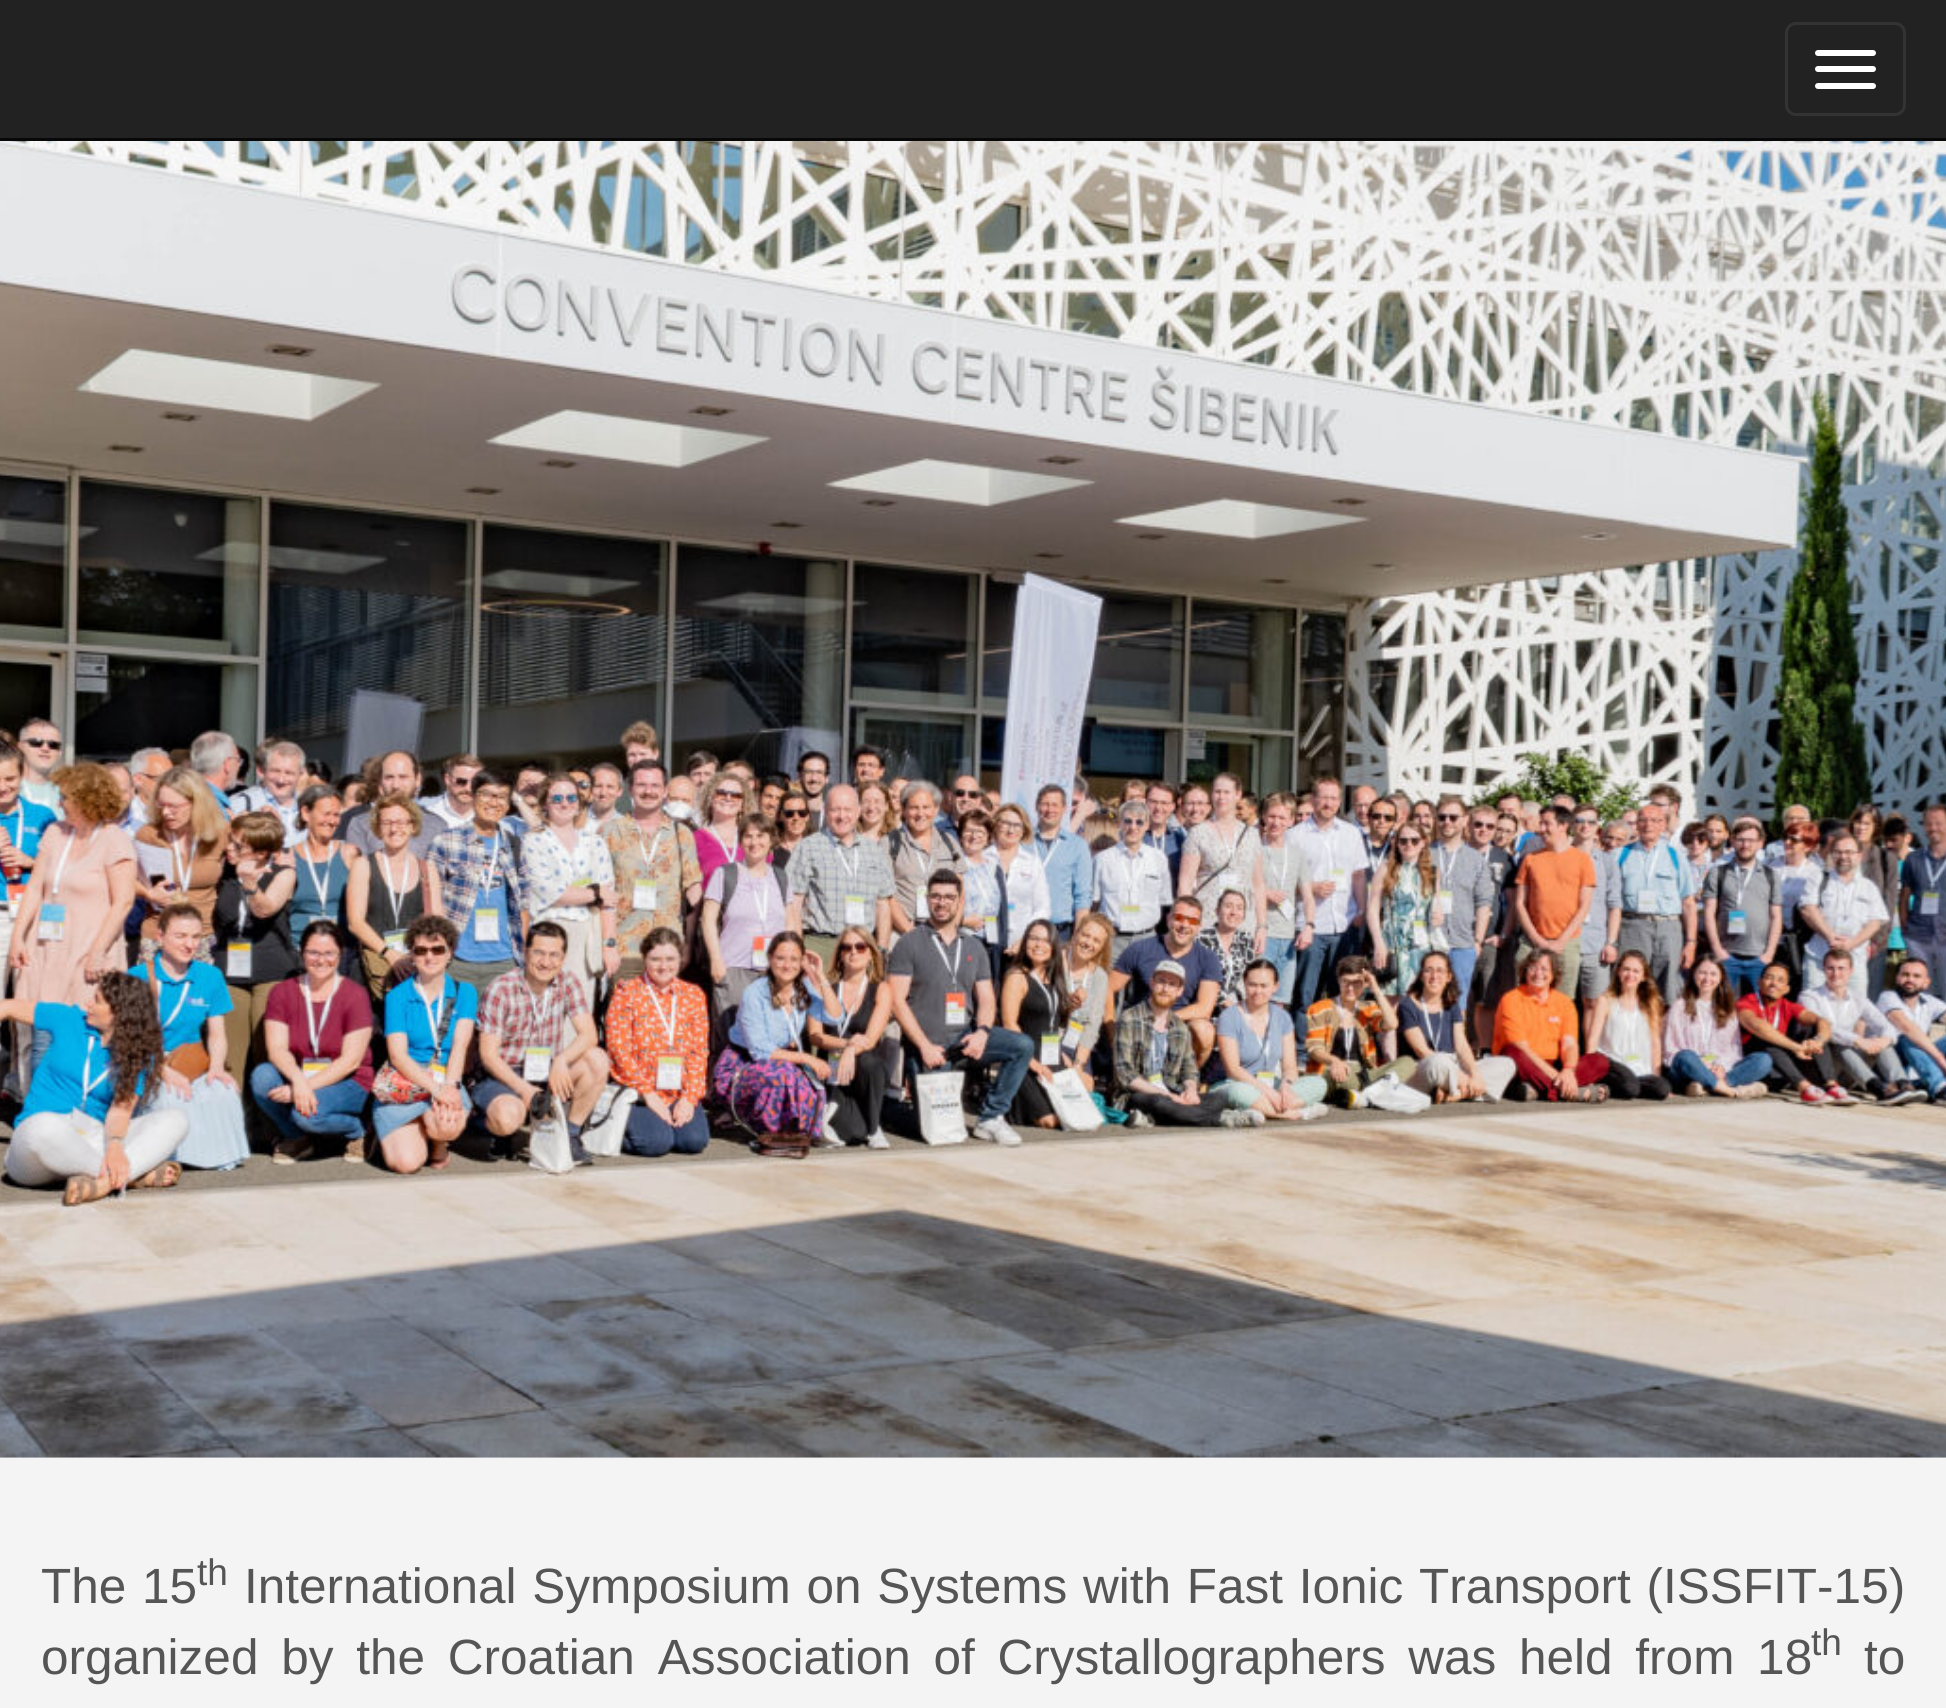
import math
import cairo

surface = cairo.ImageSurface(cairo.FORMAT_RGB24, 1946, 1708)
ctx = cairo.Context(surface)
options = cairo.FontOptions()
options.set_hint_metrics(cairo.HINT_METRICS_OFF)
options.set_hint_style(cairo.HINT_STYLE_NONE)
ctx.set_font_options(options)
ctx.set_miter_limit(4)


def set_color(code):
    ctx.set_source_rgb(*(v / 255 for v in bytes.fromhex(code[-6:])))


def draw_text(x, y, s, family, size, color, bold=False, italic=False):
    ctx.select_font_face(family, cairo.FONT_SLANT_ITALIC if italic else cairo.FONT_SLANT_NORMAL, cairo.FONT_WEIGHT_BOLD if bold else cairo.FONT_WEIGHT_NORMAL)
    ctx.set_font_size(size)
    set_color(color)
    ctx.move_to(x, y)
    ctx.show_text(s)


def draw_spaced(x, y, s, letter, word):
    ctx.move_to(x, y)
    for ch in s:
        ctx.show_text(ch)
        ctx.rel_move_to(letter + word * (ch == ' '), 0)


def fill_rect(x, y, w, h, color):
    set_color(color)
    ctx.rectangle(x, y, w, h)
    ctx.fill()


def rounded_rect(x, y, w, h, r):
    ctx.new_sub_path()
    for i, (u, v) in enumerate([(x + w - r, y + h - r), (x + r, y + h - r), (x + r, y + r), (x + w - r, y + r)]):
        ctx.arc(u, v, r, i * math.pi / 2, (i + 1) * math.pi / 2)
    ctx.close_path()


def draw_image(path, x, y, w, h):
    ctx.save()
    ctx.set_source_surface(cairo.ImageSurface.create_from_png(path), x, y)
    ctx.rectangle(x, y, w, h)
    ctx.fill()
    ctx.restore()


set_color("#f4f4f4")
ctx.paint()
fill_rect(0, 0, 1946, 138, "#222222")
fill_rect(0, 138, 1946, 3, "#080808")
rounded_rect(1786.5, 23.5, 118, 91, 9.5)
set_color("#333333")
ctx.set_line_width(3)
ctx.stroke()
set_color("#ffffff")
rounded_rect(1815, 50, 61, 6, 3)
ctx.fill()
rounded_rect(1815, 66, 61, 6, 3)
ctx.fill()
rounded_rect(1815, 83, 61, 6, 3)
ctx.fill()
fill_rect(0, 1457, 1946, 1, "#e7e7e7")
draw_image("assets/img1.png", 0, 141, 1946, 1317)
ctx.select_font_face("Liberation Sans")
ctx.set_font_size(49.5)
set_color("#555555")
draw_spaced(41, 1603, "The 15", 0, 2)
draw_text(197, 1585, "th", "Liberation Sans", 37, "#555555")
ctx.set_font_size(49.5)
draw_spaced(244, 1603, "International Symposium on Systems with Fast Ionic Transport (ISSFIT-15)", 0, 2)
draw_spaced(41, 1674, "organized by the Croatian Association of Crystallographers was held from 18", 0, 9)
draw_text(1811, 1655, "th", "Liberation Sans", 37, "#555555")
draw_text(1864, 1674, "to", "Liberation Sans", 49.5, "#555555")
surface.write_to_png("output.png")
